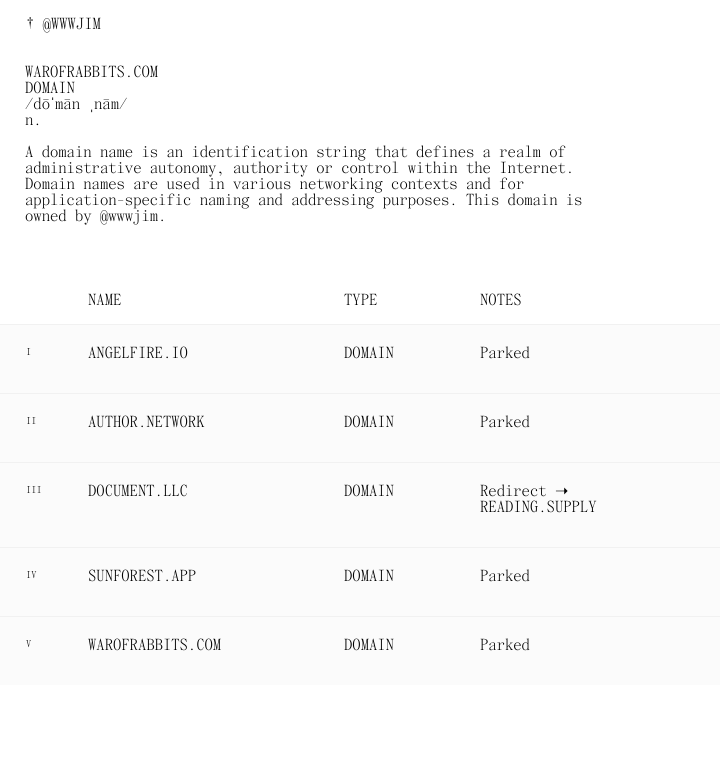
import math
import cairo

surface = cairo.ImageSurface(cairo.FORMAT_RGB24, 720, 770)
ctx = cairo.Context(surface)
options = cairo.FontOptions()
options.set_hint_metrics(cairo.HINT_METRICS_OFF)
options.set_hint_style(cairo.HINT_STYLE_NONE)
ctx.set_font_options(options)
ctx.set_miter_limit(4)


def set_color(code):
    ctx.set_source_rgb(*(v / 255 for v in bytes.fromhex(code[-6:])))


def draw_text(x, y, s, family, size, color, bold=False, italic=False):
    ctx.select_font_face(family, cairo.FONT_SLANT_ITALIC if italic else cairo.FONT_SLANT_NORMAL, cairo.FONT_WEIGHT_BOLD if bold else cairo.FONT_WEIGHT_NORMAL)
    ctx.set_font_size(size)
    set_color(color)
    ctx.move_to(x, y)
    ctx.show_text(s)


def fill_rect(x, y, w, h, color):
    set_color(color)
    ctx.rectangle(x, y, w, h)
    ctx.fill()


set_color("#ffffff")
ctx.paint()
draw_text(26, 29, "† @WWWJIM", "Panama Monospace", 16, "#000000")
draw_text(25, 77, "WAROFRABBITS.COM", "Panama Monospace", 16, "#000000")
draw_text(25, 93, "DOMAIN", "Panama Monospace", 16, "#000000")
draw_text(25, 109, "/dō", "Panama Monospace", 16, "#000000")
draw_text(50, 109, "ˈ", "Liberation Sans", 16, "#000000")
draw_text(55, 109, "mān", "Panama Monospace", 16, "#000000")
draw_text(94, 109, "nām/", "Panama Monospace", 16, "#000000")
draw_text(89, 109, "ˌ", "Liberation Sans", 16, "#000000")
draw_text(25, 125, "n.", "Panama Monospace", 16, "#000000")
draw_text(25, 157, "A domain name is an identification string that defines a realm of", "Panama Monospace", 16, "#000000")
draw_text(25, 173, "administrative autonomy, authority or control within the Internet.", "Panama Monospace", 16, "#000000")
draw_text(25, 189, "Domain names are used in various networking contexts and for", "Panama Monospace", 16, "#000000")
draw_text(25, 205, "application-specific naming and addressing purposes. This domain is", "Panama Monospace", 16, "#000000")
draw_text(25, 221, "owned by @wwwjim.", "Panama Monospace", 16, "#000000")
draw_text(88, 305, "NAME", "Panama Monospace", 16, "#000000")
draw_text(344, 305, "TYPE", "Panama Monospace", 16, "#000000")
draw_text(480, 305, "NOTES", "Panama Monospace", 16, "#000000")
fill_rect(0, 325, 720, 68, "#fbfbfb")
fill_rect(0, 324, 720, 1, "#f1f1f1")
draw_text(26, 355, "I", "Panama Monospace", 10, "#000000")
draw_text(88, 358, "ANGELFIRE.IO", "Panama Monospace", 16, "#000000")
draw_text(344, 358, "DOMAIN", "Panama Monospace", 16, "#000000")
draw_text(480, 358, "Parked", "Panama Monospace", 16, "#000000")
fill_rect(0, 394, 720, 68, "#fbfbfb")
fill_rect(0, 393, 720, 1, "#f1f1f1")
draw_text(26, 424, "II", "Panama Monospace", 10, "#000000")
draw_text(88, 427, "AUTHOR.NETWORK", "Panama Monospace", 16, "#000000")
draw_text(344, 427, "DOMAIN", "Panama Monospace", 16, "#000000")
draw_text(480, 427, "Parked", "Panama Monospace", 16, "#000000")
fill_rect(0, 463, 720, 84, "#fbfbfb")
fill_rect(0, 462, 720, 1, "#f1f1f1")
draw_text(26, 493, "III", "Panama Monospace", 10, "#000000")
draw_text(88, 496, "DOCUMENT.LLC", "Panama Monospace", 16, "#000000")
draw_text(344, 496, "DOMAIN", "Panama Monospace", 16, "#000000")
draw_text(480, 496, "Redirect", "Panama Monospace", 16, "#000000")
draw_text(555, 496, "➝", "DejaVu Sans", 16, "#000000")
draw_text(480, 512, "READING.SUPPLY", "Panama Monospace", 16, "#000000")
fill_rect(0, 548, 720, 68, "#fbfbfb")
fill_rect(0, 547, 720, 1, "#f1f1f1")
draw_text(26, 578, "IV", "Panama Monospace", 10, "#000000")
draw_text(88, 581, "SUNFOREST.APP", "Panama Monospace", 16, "#000000")
draw_text(344, 581, "DOMAIN", "Panama Monospace", 16, "#000000")
draw_text(480, 581, "Parked", "Panama Monospace", 16, "#000000")
fill_rect(0, 617, 720, 68, "#fbfbfb")
fill_rect(0, 616, 720, 1, "#f1f1f1")
draw_text(26, 647, "V", "Panama Monospace", 10, "#000000")
draw_text(88, 650, "WAROFRABBITS.COM", "Panama Monospace", 16, "#000000")
draw_text(344, 650, "DOMAIN", "Panama Monospace", 16, "#000000")
draw_text(480, 650, "Parked", "Panama Monospace", 16, "#000000")
surface.write_to_png("output.png")
